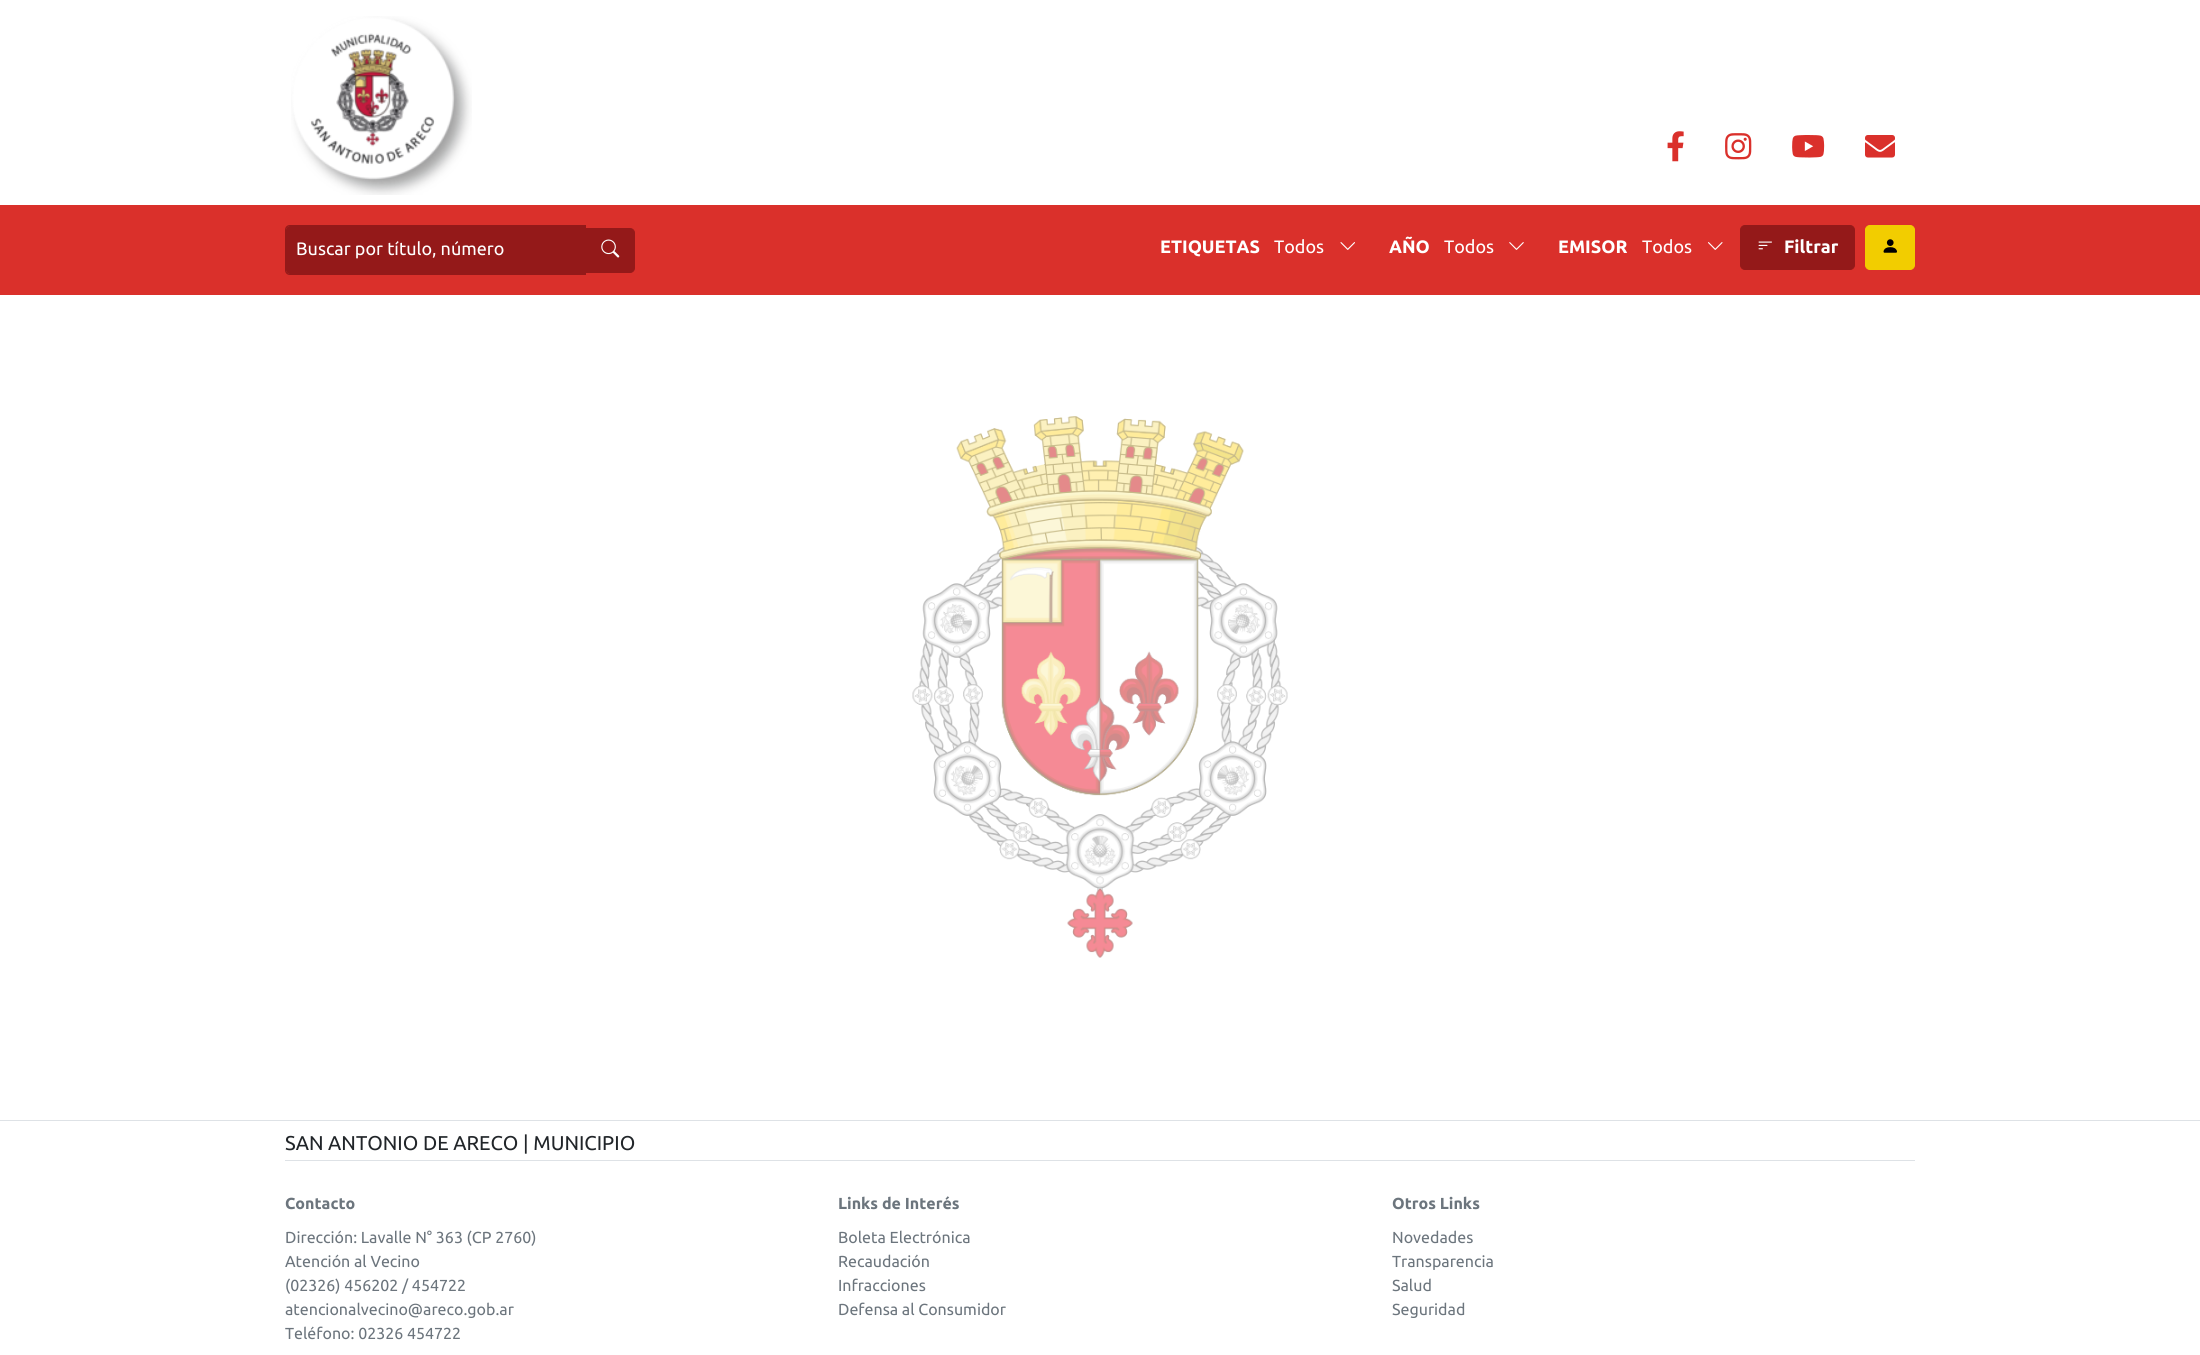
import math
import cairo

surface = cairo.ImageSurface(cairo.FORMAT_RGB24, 2200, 1355)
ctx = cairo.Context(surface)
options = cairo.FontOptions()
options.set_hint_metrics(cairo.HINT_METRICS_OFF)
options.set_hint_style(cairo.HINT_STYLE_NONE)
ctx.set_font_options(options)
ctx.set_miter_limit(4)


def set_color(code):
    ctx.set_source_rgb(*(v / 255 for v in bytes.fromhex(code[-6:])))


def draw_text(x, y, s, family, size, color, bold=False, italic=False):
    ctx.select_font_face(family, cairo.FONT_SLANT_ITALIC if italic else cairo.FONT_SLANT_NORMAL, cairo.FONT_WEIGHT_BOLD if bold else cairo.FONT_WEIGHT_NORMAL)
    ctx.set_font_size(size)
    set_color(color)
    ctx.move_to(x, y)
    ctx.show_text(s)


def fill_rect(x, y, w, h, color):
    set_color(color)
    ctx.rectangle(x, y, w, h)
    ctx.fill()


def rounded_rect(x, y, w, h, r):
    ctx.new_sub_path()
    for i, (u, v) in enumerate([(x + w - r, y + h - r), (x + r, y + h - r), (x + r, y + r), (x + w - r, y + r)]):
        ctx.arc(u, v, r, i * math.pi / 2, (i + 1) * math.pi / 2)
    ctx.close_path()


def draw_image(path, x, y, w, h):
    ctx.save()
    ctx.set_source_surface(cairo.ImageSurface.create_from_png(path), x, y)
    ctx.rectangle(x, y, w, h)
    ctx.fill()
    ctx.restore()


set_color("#ffffff")
ctx.paint()
draw_image("assets/img1.png", 291, 16, 181, 179)
draw_image("assets/img2.png", 1667, 131, 17, 31)
draw_image("assets/img3.png", 1725, 133, 27, 27)
draw_image("assets/img4.png", 1792, 135, 33, 23)
draw_image("assets/img5.png", 1865, 135, 30, 23)
fill_rect(0, 205, 2200, 90, "#da302b")
set_color("#941919")
ctx.new_path()
ctx.move_to(290, 226)
ctx.line_to(586, 226)
ctx.line_to(586, 274)
ctx.line_to(290, 274)
ctx.curve_to(288, 274, 286, 272, 286, 270)
ctx.line_to(286, 230)
ctx.curve_to(286, 228, 288, 226, 290, 226)
ctx.close_path()
ctx.fill()
ctx.set_fill_rule(cairo.FILL_RULE_EVEN_ODD)
ctx.new_path()
ctx.move_to(290, 225)
ctx.line_to(586, 225)
ctx.line_to(586, 275)
ctx.line_to(290, 275)
ctx.curve_to(287, 275, 285, 273, 285, 270)
ctx.line_to(285, 230)
ctx.curve_to(285, 227, 287, 225, 290, 225)
ctx.close_path()
ctx.move_to(290, 226)
ctx.line_to(586, 226)
ctx.line_to(586, 274)
ctx.line_to(290, 274)
ctx.curve_to(288, 274, 286, 272, 286, 270)
ctx.line_to(286, 230)
ctx.curve_to(286, 228, 288, 226, 290, 226)
ctx.close_path()
ctx.fill()
draw_text(296, 255, "Buscar por título, número", "Ubuntu", 18, "#ffffff")
set_color("#941919")
ctx.new_path()
ctx.move_to(585.5, 228.5)
ctx.line_to(630, 228.5)
ctx.curve_to(632.5, 228.5, 634.5, 230.5, 634.5, 233)
ctx.line_to(634.5, 268)
ctx.curve_to(634.5, 270.5, 632.5, 272.5, 630, 272.5)
ctx.line_to(585.5, 272.5)
ctx.close_path()
ctx.fill_preserve()
ctx.set_line_width(1)
ctx.stroke()
draw_image("assets/img6.png", 601, 239, 19, 19)
draw_text(1160, 253, "ETIQUETAS", "Ubuntu", 18, "#ffffff", bold=True)
draw_text(1274, 253, "Todos", "Ubuntu", 18, "#ffffff")
draw_image("assets/img7.png", 1340, 242, 15, 8)
draw_text(1389, 253, "AÑO", "Ubuntu", 18, "#ffffff", bold=True)
draw_text(1444, 253, "Todos", "Ubuntu", 18, "#ffffff")
draw_image("assets/img8.png", 1509, 242, 15, 8)
draw_text(1558, 253, "EMISOR", "Ubuntu", 18, "#ffffff", bold=True)
draw_text(1642, 253, "Todos", "Ubuntu", 18, "#ffffff")
draw_image("assets/img9.png", 1708, 242, 15, 8)
set_color("#941919")
rounded_rect(1740.5, 225.5, 114, 44, 4.5)
ctx.fill_preserve()
ctx.stroke()
draw_image("assets/img10.png", 1758, 241, 14, 9)
draw_text(1784, 253, "Filtrar", "Ubuntu", 18, "#ffffff", bold=True)
set_color("#f2cd00")
rounded_rect(1865.5, 225.5, 49, 44, 4.5)
ctx.fill_preserve()
ctx.stroke()
draw_image("assets/img11.png", 1883, 239, 14, 14)
draw_image("assets/img12.png", 912, 416, 376, 542)
fill_rect(0, 1120, 2200, 1, "#dee2e6")
fill_rect(285, 1160, 1630, 1, "#dee2e6")
draw_text(285, 1150, "SAN ANTONIO DE ARECO | MUNICIPIO", "Ubuntu", 20, "#212529")
draw_text(285, 1209, "Contacto", "Ubuntu", 16, "#6c757d", bold=True)
draw_text(285, 1243, "Dirección: Lavalle N° 363 (CP 2760)", "Ubuntu", 16, "#6c757d")
draw_text(285, 1267, "Atención al Vecino", "Ubuntu", 16, "#6c757d")
draw_text(285, 1291, "(02326) 456202 / 454722", "Ubuntu", 16, "#6c757d")
draw_text(285, 1315, "atencionalvecino@areco.gob.ar", "Ubuntu", 16, "#6c757d")
draw_text(285, 1339, "Teléfono: 02326 454722", "Ubuntu", 16, "#6c757d")
draw_text(838, 1209, "Links de Interés", "Ubuntu", 16, "#6c757d", bold=True)
draw_text(838, 1243, "Boleta Electrónica", "Ubuntu", 16, "#6c757d")
draw_text(838, 1267, "Recaudación", "Ubuntu", 16, "#6c757d")
draw_text(838, 1291, "Infracciones", "Ubuntu", 16, "#6c757d")
draw_text(838, 1315, "Defensa al Consumidor", "Ubuntu", 16, "#6c757d")
draw_text(1392, 1209, "Otros Links", "Ubuntu", 16, "#6c757d", bold=True)
draw_text(1392, 1243, "Novedades", "Ubuntu", 16, "#6c757d")
draw_text(1392, 1267, "Transparencia", "Ubuntu", 16, "#6c757d")
draw_text(1392, 1291, "Salud", "Ubuntu", 16, "#6c757d")
draw_text(1392, 1315, "Seguridad", "Ubuntu", 16, "#6c757d")
surface.write_to_png("output.png")
